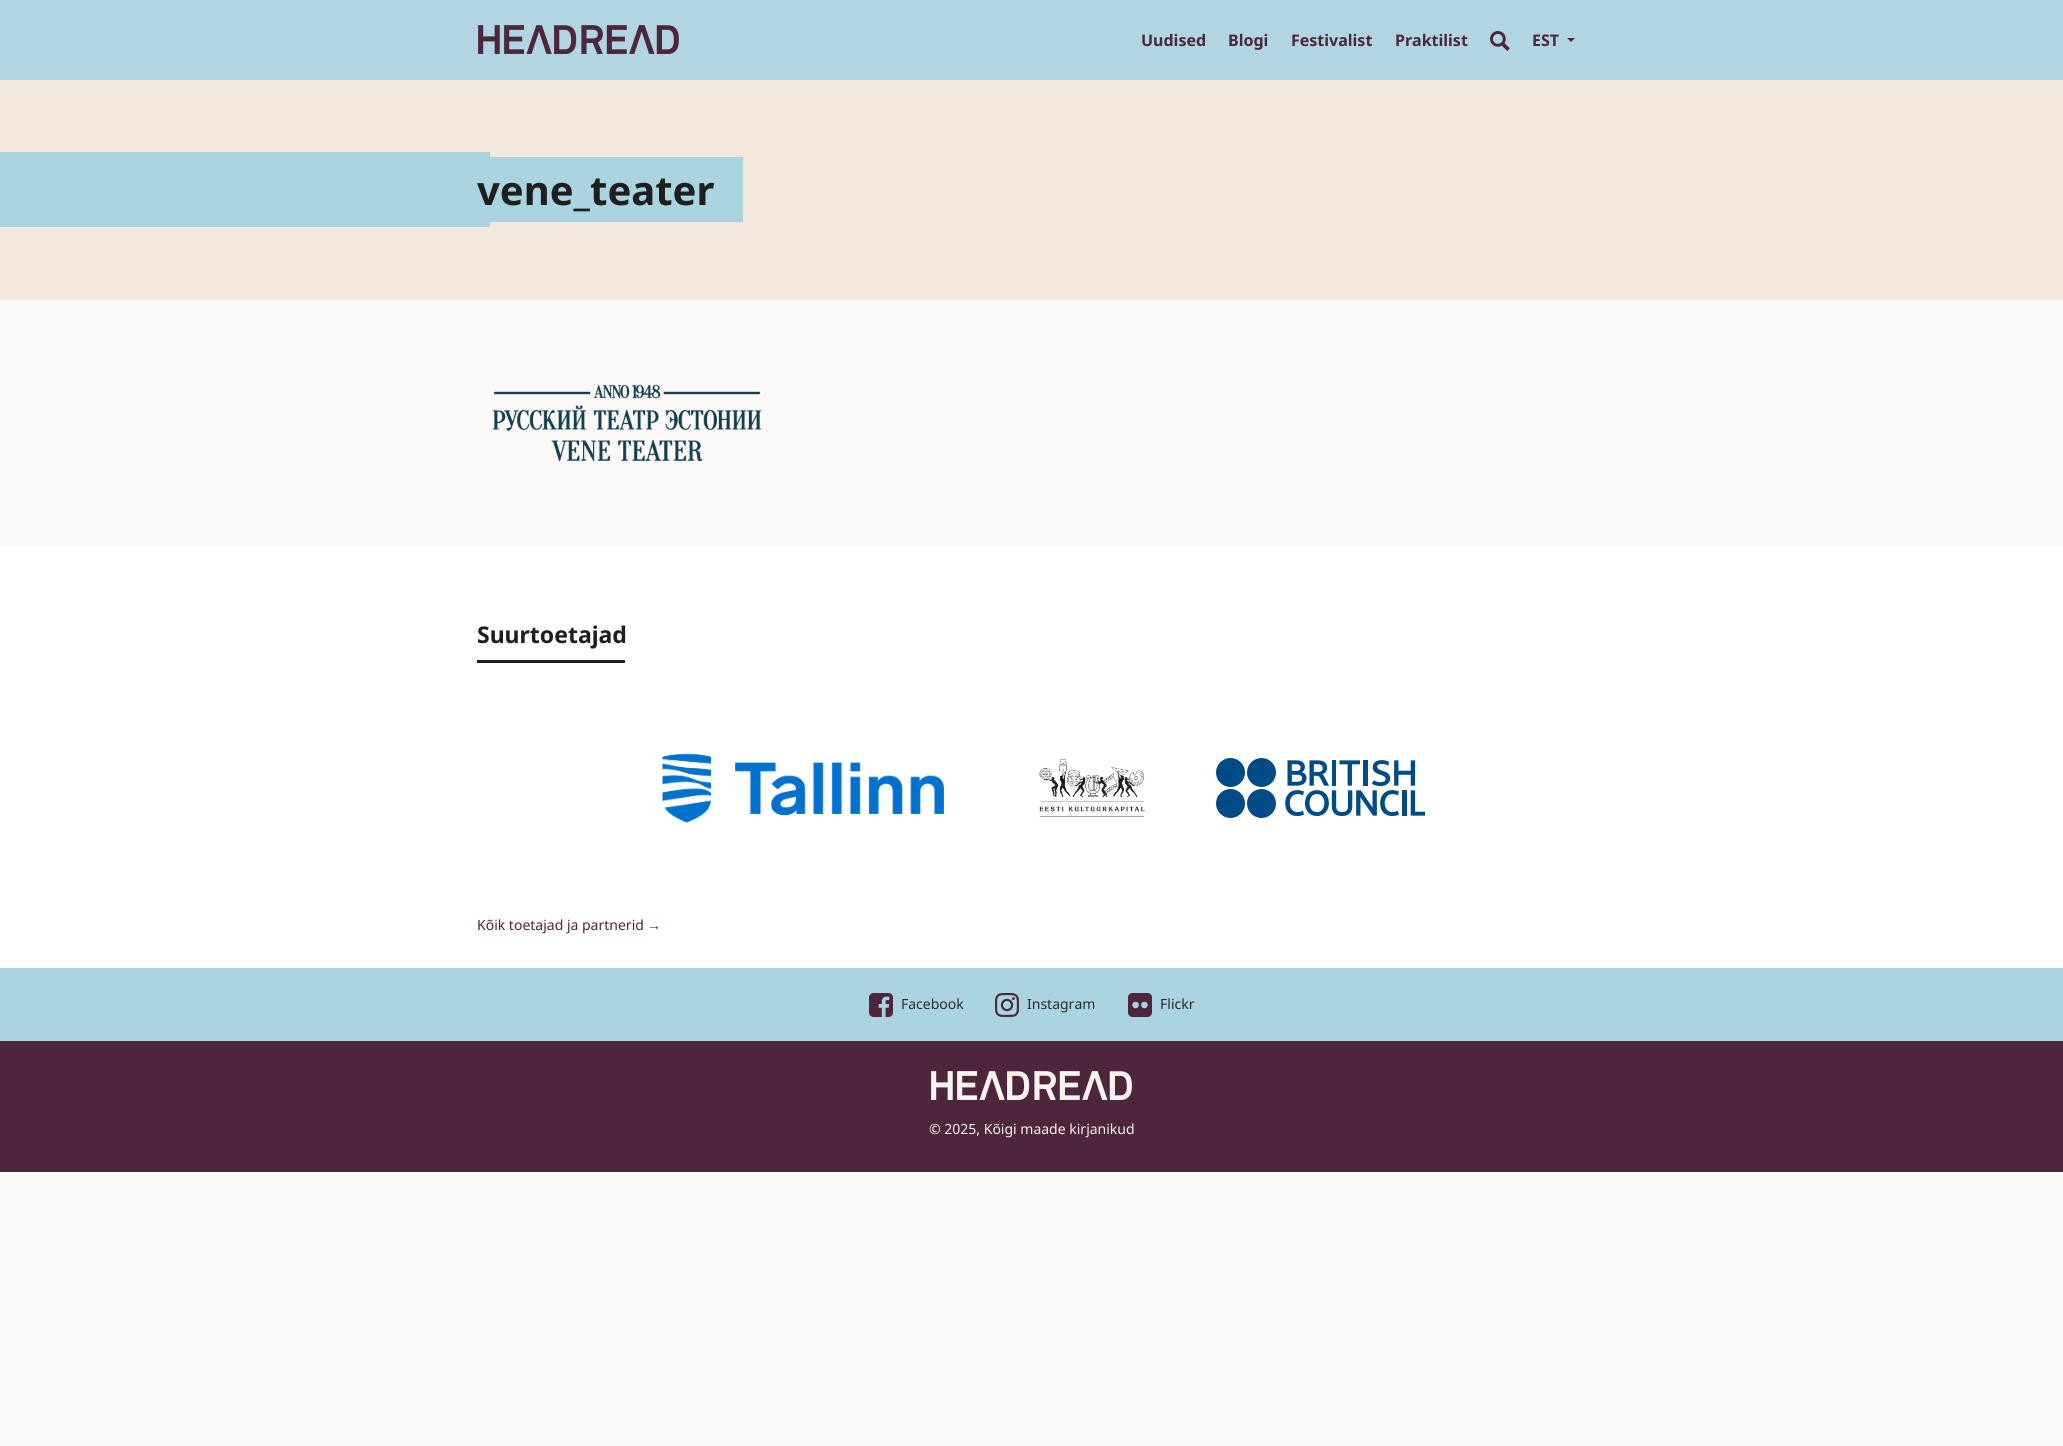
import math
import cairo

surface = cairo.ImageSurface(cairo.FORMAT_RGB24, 2063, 1446)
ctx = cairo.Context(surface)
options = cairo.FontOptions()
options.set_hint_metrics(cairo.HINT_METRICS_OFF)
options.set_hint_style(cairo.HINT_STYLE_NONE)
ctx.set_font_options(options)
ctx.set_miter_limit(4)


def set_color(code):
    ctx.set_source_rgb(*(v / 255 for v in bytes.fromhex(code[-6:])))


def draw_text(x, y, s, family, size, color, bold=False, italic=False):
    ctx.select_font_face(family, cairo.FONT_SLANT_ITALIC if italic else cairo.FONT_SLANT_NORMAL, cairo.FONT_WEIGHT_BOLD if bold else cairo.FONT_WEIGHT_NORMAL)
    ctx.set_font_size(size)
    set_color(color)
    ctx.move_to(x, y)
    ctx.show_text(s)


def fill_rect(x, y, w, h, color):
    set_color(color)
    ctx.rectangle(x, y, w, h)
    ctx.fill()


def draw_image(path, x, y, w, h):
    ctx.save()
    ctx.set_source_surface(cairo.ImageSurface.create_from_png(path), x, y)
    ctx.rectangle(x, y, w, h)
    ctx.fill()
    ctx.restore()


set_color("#fbf9f7")
ctx.paint()
fill_rect(0, 0, 2063, 80, "#b2d6e1")
draw_image("assets/img1.png", 478, 25, 201, 29)
draw_text(1141, 46, "Uudised", "Noto Sans", 16, "#4d263b", bold=True)
draw_text(1228, 46, "Blogi", "Noto Sans", 16, "#4d263b", bold=True)
draw_text(1291, 46, "Festivalist", "Noto Sans", 16, "#4d263b", bold=True)
draw_text(1395, 46, "Praktilist", "Noto Sans", 16, "#4d263b", bold=True)
draw_image("assets/img2.png", 1490, 31, 20, 20)
draw_text(1532, 46, "EST", "Noto Sans", 16, "#4d263b", bold=True)
ctx.new_path()
ctx.move_to(1567, 38)
ctx.line_to(1575, 38)
ctx.line_to(1571, 42)
ctx.close_path()
ctx.fill()
fill_rect(0, 80, 2063, 220, "#f2e8dc")
fill_rect(0, 152, 490, 75, "#abd4e1")
fill_rect(490, 157, 253, 65, "#abd4e1")
draw_text(477, 205, "vene_teater", "Noto Sans", 40, "#1e1e1c", bold=True)
fill_rect(476, 183, 1, 2, "#abd4e1")
draw_image("assets/img3.png", 492, 384, 270, 78)
fill_rect(0, 546, 2063, 422, "#ffffff")
fill_rect(477, 660, 148, 3, "#1e1e1c")
draw_text(477, 643, "Suurtoetajad", "Noto Sans", 23, "#1e1e1c", bold=True)
draw_image("assets/img4.png", 662, 753, 282, 70)
draw_image("assets/img5.png", 1039, 759, 106, 58)
draw_image("assets/img6.png", 1216, 758, 209, 60)
draw_text(477, 930, "Kõik toetajad ja partnerid", "Noto Sans", 14, "#4d263b")
draw_text(647, 930, "→", "Liberation Sans", 14, "#4d263b")
fill_rect(0, 968, 2063, 73, "#abd4e1")
draw_image("assets/img7.png", 869, 993, 24, 24)
draw_text(901, 1009, "Facebook", "Noto Sans", 14, "#292b2c")
draw_image("assets/img8.png", 995, 993, 24, 24)
draw_text(1027, 1009, "Instagram", "Noto Sans", 14, "#292b2c")
draw_image("assets/img9.png", 1128, 993, 24, 24)
draw_text(1160, 1009, "Flickr", "Noto Sans", 14, "#292b2c")
fill_rect(0, 1041, 2063, 131, "#4d263b")
draw_image("assets/img10.png", 931, 1071, 201, 29)
draw_text(929, 1134, "© 2025, Kõigi maade kirjanikud", "Noto Sans", 14, "#f9f4ef")
surface.write_to_png("output.png")
